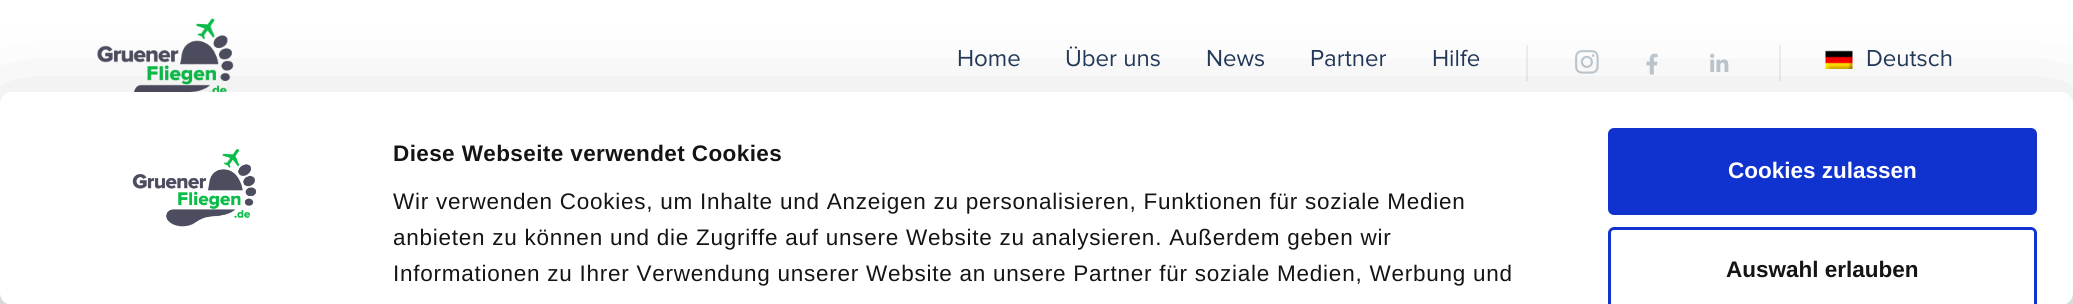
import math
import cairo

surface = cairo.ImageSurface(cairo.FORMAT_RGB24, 2073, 304)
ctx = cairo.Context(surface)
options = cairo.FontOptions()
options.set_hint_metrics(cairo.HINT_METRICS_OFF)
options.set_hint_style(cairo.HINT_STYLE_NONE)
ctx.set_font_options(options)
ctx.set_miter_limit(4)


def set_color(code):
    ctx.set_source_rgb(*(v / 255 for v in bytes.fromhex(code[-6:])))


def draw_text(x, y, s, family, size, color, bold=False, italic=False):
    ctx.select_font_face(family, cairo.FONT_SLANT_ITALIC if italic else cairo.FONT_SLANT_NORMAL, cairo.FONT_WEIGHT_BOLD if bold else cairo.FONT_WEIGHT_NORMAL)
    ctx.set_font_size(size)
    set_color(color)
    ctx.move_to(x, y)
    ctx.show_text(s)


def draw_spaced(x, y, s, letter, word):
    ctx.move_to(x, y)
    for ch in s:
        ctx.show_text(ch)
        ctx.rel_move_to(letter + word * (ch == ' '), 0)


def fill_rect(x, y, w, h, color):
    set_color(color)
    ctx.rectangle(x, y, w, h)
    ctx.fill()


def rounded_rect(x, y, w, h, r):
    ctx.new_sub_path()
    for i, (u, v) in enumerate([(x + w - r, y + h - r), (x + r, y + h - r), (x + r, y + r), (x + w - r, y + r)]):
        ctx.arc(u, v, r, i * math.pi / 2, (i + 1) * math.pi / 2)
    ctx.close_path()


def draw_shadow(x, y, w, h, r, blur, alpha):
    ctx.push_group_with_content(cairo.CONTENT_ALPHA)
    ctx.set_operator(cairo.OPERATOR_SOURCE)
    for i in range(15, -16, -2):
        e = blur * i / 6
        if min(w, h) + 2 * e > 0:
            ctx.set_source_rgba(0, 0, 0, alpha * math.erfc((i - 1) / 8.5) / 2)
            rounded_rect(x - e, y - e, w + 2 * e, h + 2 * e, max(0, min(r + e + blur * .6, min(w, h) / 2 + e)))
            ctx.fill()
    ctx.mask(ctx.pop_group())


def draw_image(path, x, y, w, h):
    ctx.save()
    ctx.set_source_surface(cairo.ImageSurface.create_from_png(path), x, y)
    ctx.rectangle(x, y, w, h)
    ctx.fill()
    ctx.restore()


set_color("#ffffff")
ctx.paint()
draw_image("assets/img1.png", 97, 18, 137, 74)
draw_text(957, 66, "Home", "Proxima Nova", 24, "#243a5a")
draw_text(1065, 66, "Über uns", "Proxima Nova", 24, "#243a5a")
draw_text(1206, 66, "News", "Proxima Nova", 24, "#243a5a")
draw_text(1310, 66, "Partner", "Proxima Nova", 24, "#243a5a")
draw_text(1432, 66, "Hilfe", "Proxima Nova", 24, "#243a5a")
fill_rect(1779, 45, 2, 36, "#e9f0f3")
fill_rect(1526, 45, 2, 36, "#e9f0f3")
draw_image("assets/img2.png", 1575, 50, 24, 24)
draw_image("assets/img3.png", 1646, 53, 12, 22)
draw_image("assets/img4.png", 1710, 53, 19, 19)
draw_image("assets/img5.png", 1825, 50, 28, 19)
draw_text(1866, 66, "Deutsch", "Proxima Nova", 24, "#243a5a")
set_color("#000000")
draw_shadow(0, 137, 2073, 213, 12, 52.5, 0.3)
set_color("#ffffff")
rounded_rect(0, 92, 2073, 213, 12)
ctx.fill()
draw_image("assets/img6.png", 132, 149, 124, 78)
ctx.select_font_face("Liberation Sans", cairo.FONT_SLANT_NORMAL, cairo.FONT_WEIGHT_BOLD)
ctx.set_font_size(22.5)
set_color("#141414")
draw_spaced(393, 161, "Diese Webseite verwendet Cookies", 0.4, 0)
ctx.select_font_face("Liberation Sans")
draw_spaced(393, 209, "Wir verwenden Cookies, um Inhalte und Anzeigen zu personalisieren, Funktionen für soziale Medien", 0.75, 0)
draw_spaced(393, 245, "anbieten zu können und die Zugriffe auf unsere Website zu analysieren. Außerdem geben wir", 0.75, 0)
draw_spaced(393, 281, "Informationen zu Ihrer Verwendung unserer Website an unsere Partner für soziale Medien, Werbung und", 0.75, 0)
set_color("#1032cf")
rounded_rect(1609.5, 129.5, 426, 84, 4.5)
ctx.fill_preserve()
ctx.set_line_width(3)
ctx.stroke()
draw_text(1728, 178, "Cookies zulassen", "Liberation Sans", 22.5, "#ffffff", bold=True)
set_color("#1032cf")
ctx.new_path()
ctx.move_to(1614, 227)
ctx.curve_to(1611, 227, 1608, 230, 1608, 233)
ctx.line_to(1608, 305)
ctx.line_to(1611, 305)
ctx.line_to(1611, 233)
ctx.curve_to(1611, 231, 1612, 230, 1614, 230)
ctx.line_to(2031, 230)
ctx.curve_to(2033, 230, 2034, 231, 2034, 233)
ctx.line_to(2034, 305)
ctx.line_to(2037, 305)
ctx.line_to(2037, 233)
ctx.curve_to(2037, 230, 2034, 227, 2031, 227)
ctx.close_path()
ctx.fill()
draw_text(1726, 277, "Auswahl erlauben", "Liberation Sans", 22.5, "#141414", bold=True)
surface.write_to_png("output.png")
